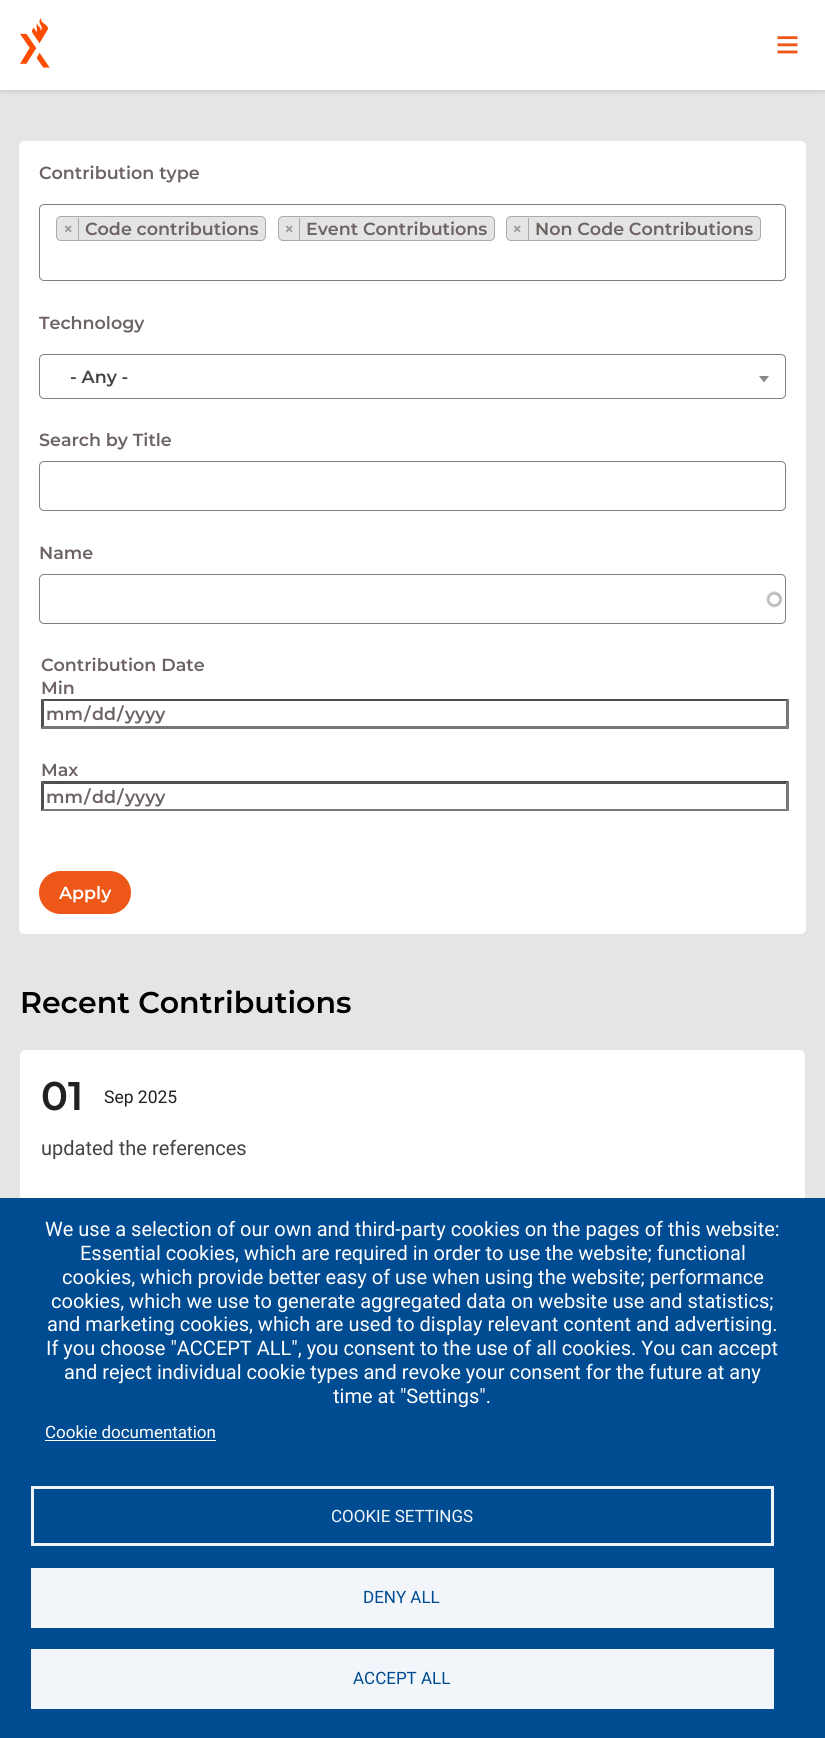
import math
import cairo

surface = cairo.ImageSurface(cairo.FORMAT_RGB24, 825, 1738)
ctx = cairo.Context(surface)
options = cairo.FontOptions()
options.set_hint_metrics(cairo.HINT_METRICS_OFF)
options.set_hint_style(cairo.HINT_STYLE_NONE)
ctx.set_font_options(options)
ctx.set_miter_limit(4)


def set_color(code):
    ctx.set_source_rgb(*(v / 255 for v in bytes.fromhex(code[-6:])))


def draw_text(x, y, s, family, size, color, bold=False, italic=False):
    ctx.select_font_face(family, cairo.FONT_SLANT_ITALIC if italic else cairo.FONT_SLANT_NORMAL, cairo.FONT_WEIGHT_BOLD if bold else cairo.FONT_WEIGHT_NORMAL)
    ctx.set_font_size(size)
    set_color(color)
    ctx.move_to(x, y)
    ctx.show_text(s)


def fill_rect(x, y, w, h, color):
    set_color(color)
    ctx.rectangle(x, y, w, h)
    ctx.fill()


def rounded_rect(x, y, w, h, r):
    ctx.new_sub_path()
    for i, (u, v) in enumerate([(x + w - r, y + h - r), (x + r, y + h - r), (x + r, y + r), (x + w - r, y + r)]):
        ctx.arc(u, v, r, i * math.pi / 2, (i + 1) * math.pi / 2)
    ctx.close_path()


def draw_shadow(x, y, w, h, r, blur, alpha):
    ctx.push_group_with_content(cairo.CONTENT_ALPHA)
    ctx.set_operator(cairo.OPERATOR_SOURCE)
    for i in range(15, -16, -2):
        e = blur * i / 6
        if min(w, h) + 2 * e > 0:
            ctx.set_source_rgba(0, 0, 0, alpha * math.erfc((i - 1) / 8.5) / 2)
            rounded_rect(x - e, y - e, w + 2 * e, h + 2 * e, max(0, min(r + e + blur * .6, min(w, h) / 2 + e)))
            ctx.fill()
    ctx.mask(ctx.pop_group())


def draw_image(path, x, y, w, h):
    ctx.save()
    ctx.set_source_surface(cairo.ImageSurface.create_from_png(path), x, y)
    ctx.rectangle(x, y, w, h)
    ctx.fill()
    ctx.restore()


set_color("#e5e5e5")
ctx.paint()
set_color("#000000")
draw_shadow(0, 1, 825, 90, 0, 2.5, 0.15)
fill_rect(0, 0, 825, 90, "#ffffff")
draw_image("assets/img1.png", 20, 18, 30, 50)
draw_image("assets/img2.png", 777, 36, 21, 18)
rounded_rect(19, 141, 787, 793, 5)
ctx.fill()
draw_text(39, 179, "Contribution type", "Montserrat Thin", 17.5, "#6d6363")
rounded_rect(39.5, 204.5, 746, 76, 4.5)
set_color("#858080")
ctx.set_line_width(1)
ctx.stroke()
set_color("#e4e4e4")
rounded_rect(56.5, 216.5, 209, 24, 4.5)
ctx.fill_preserve()
set_color("#aaaaaa")
ctx.stroke()
fill_rect(78, 218, 1, 22, "#aaaaaa")
draw_text(63, 235, "×", "Montserrat Thin", 17.5, "#999999")
draw_text(85, 235, "Code contributions", "Montserrat Thin", 17.5, "#6d6363")
set_color("#e4e4e4")
rounded_rect(278.5, 216.5, 216, 24, 4.5)
ctx.fill_preserve()
set_color("#aaaaaa")
ctx.stroke()
fill_rect(299, 218, 1, 22, "#aaaaaa")
draw_text(284, 235, "×", "Montserrat Thin", 17.5, "#999999")
draw_text(306, 235, "Event Contributions", "Montserrat Thin", 17.5, "#6d6363")
set_color("#e4e4e4")
rounded_rect(506.5, 216.5, 254, 24, 4.5)
ctx.fill_preserve()
set_color("#aaaaaa")
ctx.stroke()
fill_rect(528, 218, 1, 22, "#aaaaaa")
draw_text(512, 235, "×", "Montserrat Thin", 17.5, "#999999")
draw_text(535, 235, "Non Code Contributions", "Montserrat Thin", 17.5, "#6d6363")
draw_text(39, 329, "Technology", "Montserrat Thin", 17.5, "#6d6363")
rounded_rect(39.5, 354.5, 746, 44, 4.5)
set_color("#858080")
ctx.stroke()
draw_text(70, 383, "- Any -", "Montserrat Thin", 17.5, "#444444")
set_color("#888888")
ctx.new_path()
ctx.move_to(759, 376)
ctx.line_to(769, 376)
ctx.line_to(764, 382.5)
ctx.close_path()
ctx.fill()
draw_text(39, 446, "Search by Title", "Montserrat Thin", 17.5, "#6d6363")
rounded_rect(39.5, 461.5, 746, 49, 4.5)
set_color("#858080")
ctx.stroke()
draw_text(39, 559, "Name", "Montserrat Thin", 17.5, "#6d6363")
draw_image("assets/img3.png", 766, 591, 17, 17)
rounded_rect(39.5, 574.5, 746, 49, 4.5)
set_color("#858080")
ctx.stroke()
draw_text(41, 671, "Contribution Date", "Montserrat Thin", 17.5, "#6d6363")
draw_text(41, 694, "Min", "Montserrat Thin", 17.5, "#6d6363")
set_color("#4f4f4f")
ctx.new_path()
ctx.move_to(41, 699)
ctx.line_to(789, 699)
ctx.line_to(786, 701)
ctx.line_to(44, 701)
ctx.close_path()
ctx.fill()
set_color("#767676")
ctx.new_path()
ctx.move_to(789, 699)
ctx.line_to(789, 729)
ctx.line_to(786, 726)
ctx.line_to(786, 701)
ctx.close_path()
ctx.fill()
ctx.new_path()
ctx.move_to(789, 729)
ctx.line_to(41, 729)
ctx.line_to(44, 726)
ctx.line_to(786, 726)
ctx.close_path()
ctx.fill()
set_color("#4f4f4f")
ctx.new_path()
ctx.move_to(41, 729)
ctx.line_to(41, 699)
ctx.line_to(44, 701)
ctx.line_to(44, 726)
ctx.close_path()
ctx.fill()
draw_text(46, 720, "mm", "Montserrat Thin", 17.5, "#6d6363")
draw_text(84, 720, "/", "Montserrat Thin", 17.5, "#6d6363")
draw_text(92, 720, "dd", "Montserrat Thin", 17.5, "#6d6363")
draw_text(117, 720, "/", "Montserrat Thin", 17.5, "#6d6363")
draw_text(125, 720, "yyyy", "Montserrat Thin", 17.5, "#6d6363")
draw_text(41, 776, "Max", "Montserrat Thin", 17.5, "#6d6363")
set_color("#4f4f4f")
ctx.new_path()
ctx.move_to(41, 781)
ctx.line_to(789, 781)
ctx.line_to(786, 784)
ctx.line_to(44, 784)
ctx.close_path()
ctx.fill()
set_color("#767676")
ctx.new_path()
ctx.move_to(789, 781)
ctx.line_to(789, 811)
ctx.line_to(786, 809)
ctx.line_to(786, 784)
ctx.close_path()
ctx.fill()
ctx.new_path()
ctx.move_to(789, 811)
ctx.line_to(41, 811)
ctx.line_to(44, 809)
ctx.line_to(786, 809)
ctx.close_path()
ctx.fill()
set_color("#4f4f4f")
ctx.new_path()
ctx.move_to(41, 811)
ctx.line_to(41, 781)
ctx.line_to(44, 784)
ctx.line_to(44, 809)
ctx.close_path()
ctx.fill()
draw_text(46, 803, "mm", "Montserrat Thin", 17.5, "#6d6363")
draw_text(84, 803, "/", "Montserrat Thin", 17.5, "#6d6363")
draw_text(92, 803, "dd", "Montserrat Thin", 17.5, "#6d6363")
draw_text(117, 803, "/", "Montserrat Thin", 17.5, "#6d6363")
draw_text(125, 803, "yyyy", "Montserrat Thin", 17.5, "#6d6363")
set_color("#ed5717")
rounded_rect(39, 871, 92, 43, 21.5)
ctx.fill()
draw_text(59, 899, "Apply", "Montserrat Thin", 17.5, "#ffffff")
draw_text(20, 1013, "Recent Contributions", "Montserrat Thin", 30, "#000000")
set_color("#ffffff")
rounded_rect(20.5, 1050.5, 784, 242, 5.5)
ctx.fill_preserve()
ctx.stroke()
draw_text(41, 1110, "01", "Montserrat Thin", 40, "#212121")
draw_text(104, 1103, "Sep 2025", "Roboto", 17.5, "#212121")
draw_text(41, 1155, "updated the references", "Roboto", 20, "#444444")
fill_rect(0, 1198, 825, 540, "#004c93")
draw_text(45, 1236, "We use a selection of our own and third-party cookies on the pages of this website:", "Roboto", 20, "#ffffff")
draw_text(80, 1260, "Essential cookies, which are required in order to use the website; functional", "Roboto", 20, "#ffffff")
draw_text(62, 1284, "cookies, which provide better easy of use when using the website; performance", "Roboto", 20, "#ffffff")
draw_text(51, 1308, "cookies, which we use to generate aggregated data on website use and statistics;", "Roboto", 20, "#ffffff")
draw_text(47, 1331, "and marketing cookies, which are used to display relevant content and advertising.", "Roboto", 20, "#ffffff")
draw_text(46, 1355, "If you choose \"ACCEPT ALL\", you consent to the use of all cookies. You can accept", "Roboto", 20, "#ffffff")
draw_text(64, 1379, "and reject individual cookie types and revoke your consent for the future at any", "Roboto", 20, "#ffffff")
draw_text(333, 1403, "time at \"Settings\".", "Roboto", 20, "#ffffff")
draw_text(45, 1438, "Cookie documentation", "Roboto", 17, "#ffffff")
fill_rect(45, 1440, 171, 1, "#ffffff")
ctx.rectangle(32.5, 1487.5, 740, 57)
set_color("#f2f6fa")
ctx.set_line_width(3)
ctx.stroke()
draw_text(331, 1522, "COOKIE SETTINGS", "Roboto", 17, "#f2f6fa")
fill_rect(31, 1568, 743, 60, "#f2f6fa")
draw_text(363, 1603, "DENY ALL", "Roboto", 17, "#004c93")
fill_rect(31, 1649, 743, 60, "#f2f6fa")
draw_text(353, 1684, "ACCEPT ALL", "Roboto", 17, "#004c93")
surface.write_to_png("output.png")
